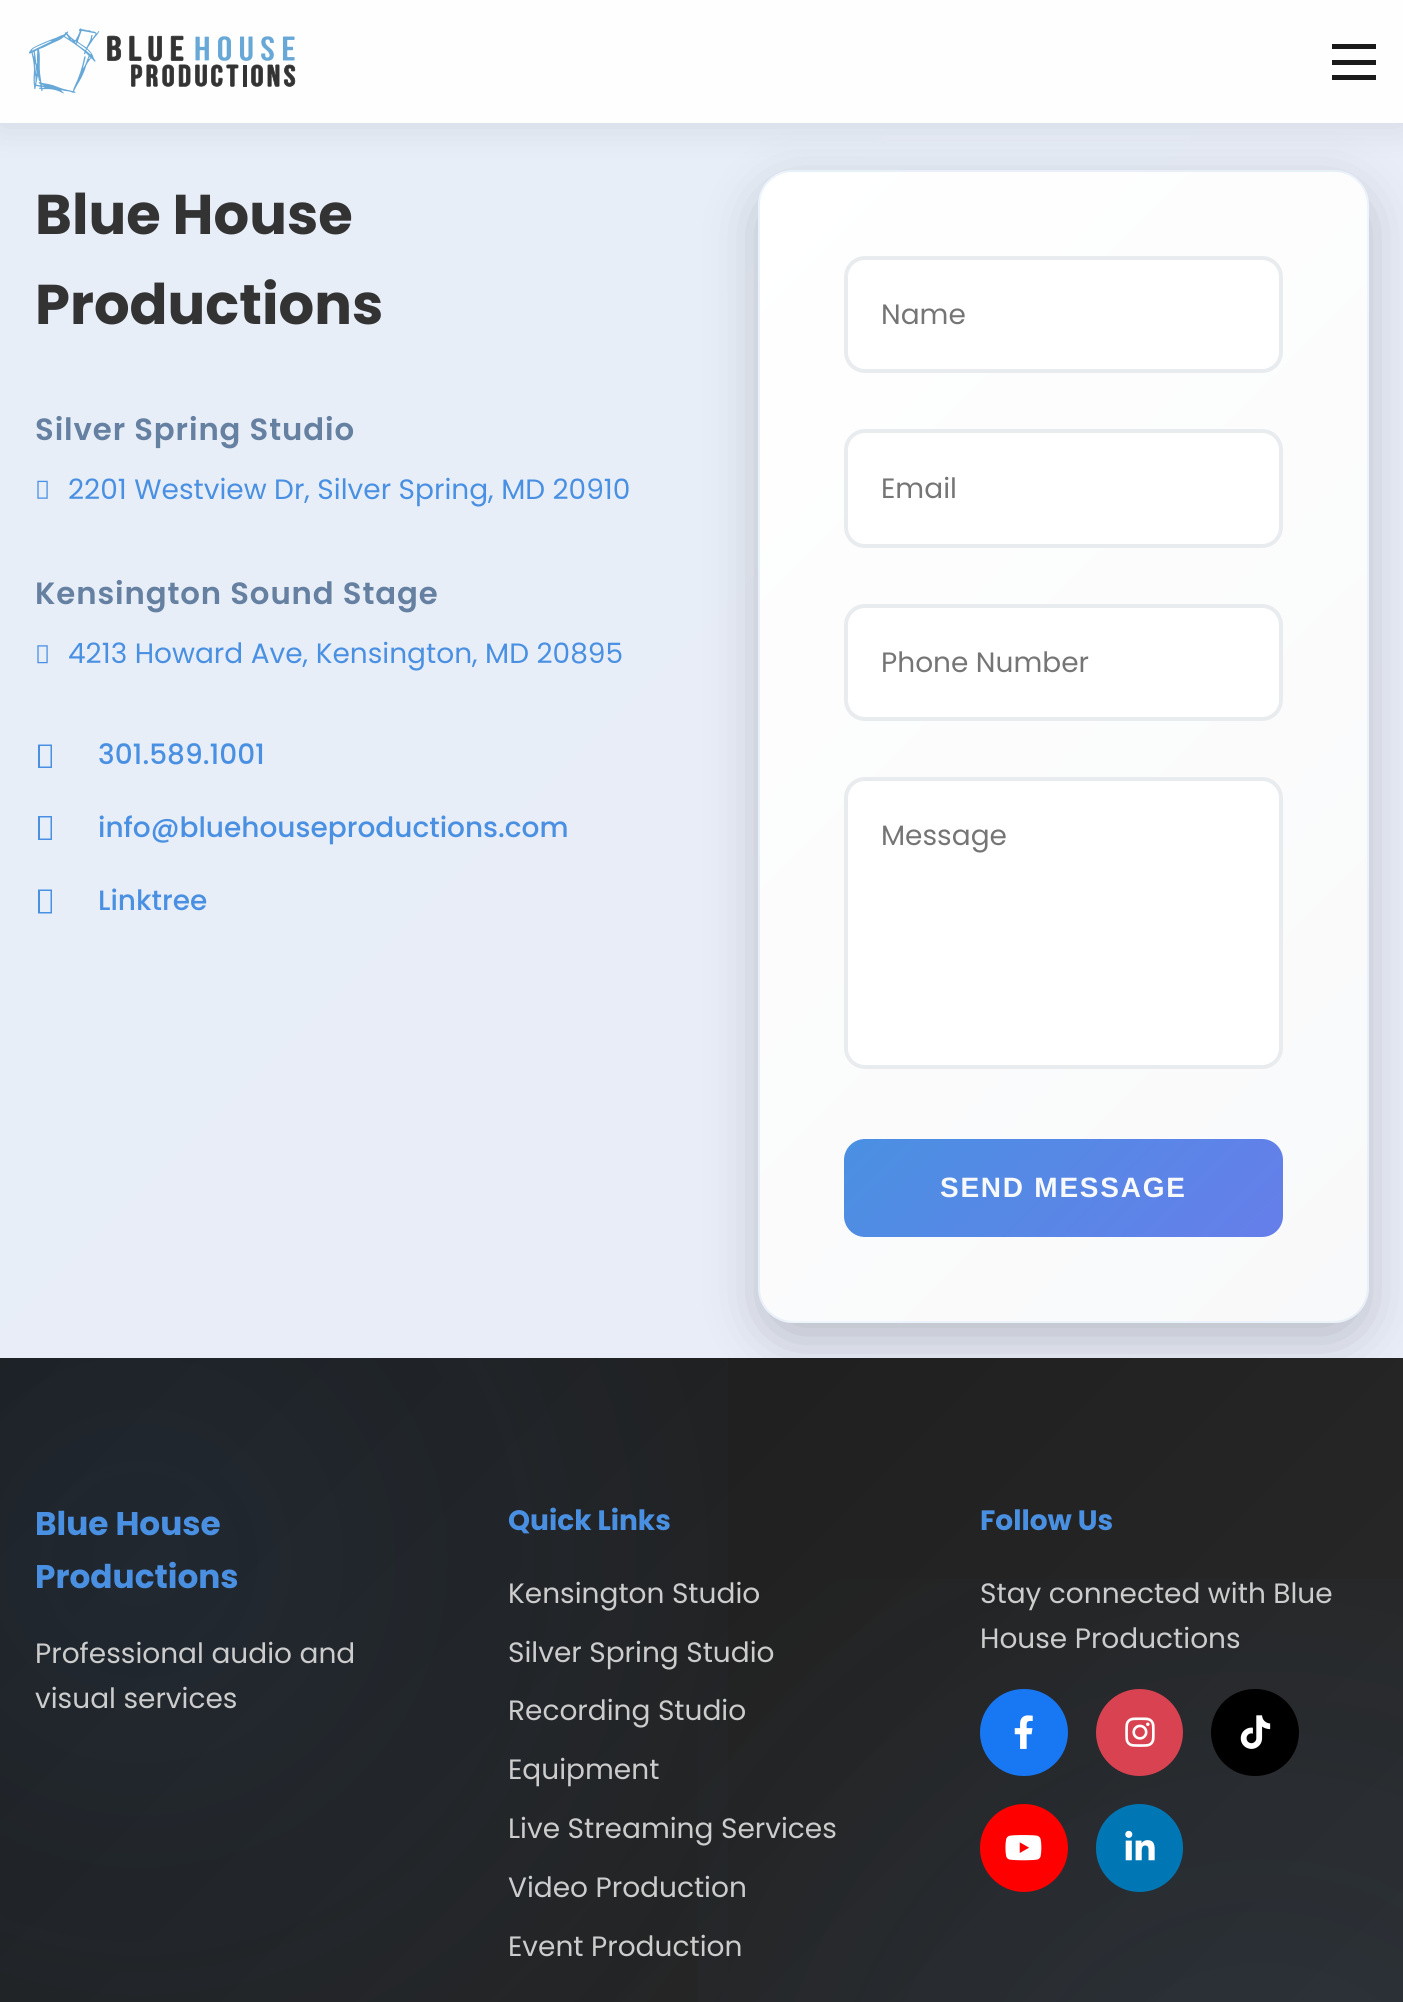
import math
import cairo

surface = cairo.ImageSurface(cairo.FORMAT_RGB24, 1403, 2002)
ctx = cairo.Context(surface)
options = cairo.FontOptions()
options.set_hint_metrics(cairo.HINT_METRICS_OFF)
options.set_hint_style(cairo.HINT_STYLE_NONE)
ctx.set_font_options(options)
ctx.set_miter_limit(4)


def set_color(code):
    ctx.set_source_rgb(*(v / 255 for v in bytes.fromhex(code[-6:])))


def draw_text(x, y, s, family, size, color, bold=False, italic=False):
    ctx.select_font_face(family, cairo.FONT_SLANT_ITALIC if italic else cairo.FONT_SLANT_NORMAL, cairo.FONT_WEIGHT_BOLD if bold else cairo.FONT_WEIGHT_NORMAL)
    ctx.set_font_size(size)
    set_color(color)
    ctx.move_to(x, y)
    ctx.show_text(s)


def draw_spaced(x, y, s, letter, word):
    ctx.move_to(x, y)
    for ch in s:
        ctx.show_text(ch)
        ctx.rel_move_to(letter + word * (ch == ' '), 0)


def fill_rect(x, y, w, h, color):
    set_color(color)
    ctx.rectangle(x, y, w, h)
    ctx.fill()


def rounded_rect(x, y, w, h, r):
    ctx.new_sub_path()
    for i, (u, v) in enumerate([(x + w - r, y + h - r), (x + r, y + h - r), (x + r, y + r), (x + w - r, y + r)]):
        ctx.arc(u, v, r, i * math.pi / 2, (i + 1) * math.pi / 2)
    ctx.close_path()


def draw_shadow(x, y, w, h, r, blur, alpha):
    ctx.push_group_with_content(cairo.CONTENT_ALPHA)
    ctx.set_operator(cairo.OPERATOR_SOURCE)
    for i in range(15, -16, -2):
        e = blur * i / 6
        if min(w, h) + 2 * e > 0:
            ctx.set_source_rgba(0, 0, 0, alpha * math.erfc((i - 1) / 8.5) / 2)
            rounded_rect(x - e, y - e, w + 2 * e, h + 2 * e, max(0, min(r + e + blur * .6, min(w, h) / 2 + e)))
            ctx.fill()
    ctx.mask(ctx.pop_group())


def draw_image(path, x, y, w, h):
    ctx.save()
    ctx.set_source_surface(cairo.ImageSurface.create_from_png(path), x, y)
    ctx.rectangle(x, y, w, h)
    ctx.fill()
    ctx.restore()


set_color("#f8f9fa")
ctx.paint()
gradient = cairo.LinearGradient(-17, -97, 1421, 1341)
gradient.add_color_stop_rgba(0, 0.29, 0.565, 0.886, 0.1)
gradient.add_color_stop_rgba(1, 0.4, 0.494, 0.918, 0.1)
ctx.set_source(gradient)
ctx.rectangle(0, 0, 1403, 1358)
ctx.fill()
set_color("#000000")
draw_shadow(758, 187, 611, 1154, 35, 26, 0.2)
ctx.save()
rounded_rect(758, 170, 611, 1153, 35)
ctx.clip()
gradient = cairo.LinearGradient(624, -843, 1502, 36)
gradient.add_color_stop_rgba(0, 1, 1, 1, 1)
gradient.add_color_stop_rgba(1, 0.973, 0.976, 0.98, 1)
ctx.set_source(gradient)
ctx.rectangle(781, 170, 565, 2)
ctx.fill()
gradient = cairo.LinearGradient(624, 307, 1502, 1186)
gradient.add_color_stop_rgba(0, 1, 1, 1, 1)
gradient.add_color_stop_rgba(1, 0.973, 0.976, 0.98, 1)
ctx.set_source(gradient)
ctx.rectangle(760, 172, 607, 1149)
ctx.fill()
gradient = cairo.LinearGradient(17, 307, 895, 1186)
gradient.add_color_stop_rgba(0, 1, 1, 1, 1)
gradient.add_color_stop_rgba(1, 0.973, 0.976, 0.98, 1)
ctx.set_source(gradient)
ctx.rectangle(758, 193, 2, 1107)
ctx.fill()
gradient = cairo.LinearGradient(1231, 307, 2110, 1186)
gradient.add_color_stop_rgba(0, 1, 1, 1, 1)
gradient.add_color_stop_rgba(1, 0.973, 0.976, 0.98, 1)
ctx.set_source(gradient)
ctx.rectangle(1367, 193, 2, 1107)
ctx.fill()
gradient = cairo.LinearGradient(624, 1457, 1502, 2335)
gradient.add_color_stop_rgba(0, 1, 1, 1, 1)
gradient.add_color_stop_rgba(1, 0.973, 0.976, 0.98, 1)
ctx.set_source(gradient)
ctx.rectangle(781, 1321, 565, 2)
ctx.fill()
ctx.restore()
rounded_rect(759, 171, 609, 1151, 34)
ctx.set_source_rgba(0.29, 0.565, 0.886, 0.1)
ctx.stroke()
ctx.save()
ctx.set_fill_rule(cairo.FILL_RULE_EVEN_ODD)
ctx.new_path()
ctx.move_to(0, 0)
ctx.line_to(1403, 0)
ctx.line_to(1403, 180)
ctx.line_to(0, 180)
ctx.close_path()
ctx.move_to(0, 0)
ctx.line_to(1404, 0)
ctx.line_to(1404, 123)
ctx.line_to(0, 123)
ctx.close_path()
ctx.clip()
set_color("#000000")
draw_shadow(0, 4, 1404, 122, 0, 17.5, 0.1)
ctx.restore()
ctx.set_source_rgba(1, 1, 1, 0.95)
ctx.rectangle(0, 0, 1403, 123)
ctx.fill()
draw_image("assets/img1.png", 29, 28, 267, 66)
fill_rect(1332, 44, 44, 5, "#1a1a1a")
fill_rect(1332, 60, 44, 5, "#1a1a1a")
fill_rect(1332, 75, 44, 5, "#1a1a1a")
draw_text(35, 234, "Blue House", "Poppins", 56, "#333333", bold=True)
draw_text(35, 324, "Productions", "Poppins", 56, "#333333", bold=True)
ctx.select_font_face("Poppins SemiBold")
ctx.set_font_size(30.75)
set_color("#6580a0")
draw_spaced(35, 440, "Silver Spring Studio", 0.9, 0)
draw_image("assets/img2.png", 37, 480, 11, 19)
draw_text(68, 499, "2201 Westview Dr, Silver Spring, MD 20910", "Poppins", 28, "#4a90e2")
ctx.select_font_face("Poppins SemiBold")
ctx.set_font_size(30.75)
set_color("#6580a0")
draw_spaced(35, 604, "Kensington Sound Stage", 0.9, 0)
draw_image("assets/img3.png", 37, 645, 11, 19)
draw_text(68, 663, "4213 Howard Ave, Kensington, MD 20895", "Poppins", 28, "#4a90e2")
ctx.new_path()
ctx.move_to(38, 768)
ctx.line_to(38, 744.5)
ctx.line_to(52, 744.5)
ctx.line_to(52, 768)
ctx.close_path()
ctx.move_to(40, 766.5)
ctx.line_to(50.5, 766.5)
ctx.line_to(50.5, 746)
ctx.line_to(40, 746)
ctx.close_path()
ctx.fill()
draw_text(98, 764, "301.589.1001", "Poppins Medium", 28, "#4a90e2")
ctx.new_path()
ctx.move_to(38, 840)
ctx.line_to(38, 816)
ctx.line_to(52, 816)
ctx.line_to(52, 840)
ctx.close_path()
ctx.move_to(40, 838.5)
ctx.line_to(50.5, 838.5)
ctx.line_to(50.5, 817.5)
ctx.line_to(40, 817.5)
ctx.close_path()
ctx.fill()
draw_text(98, 837, "info@bluehouseproductions.com", "Poppins Medium", 28, "#4a90e2")
ctx.new_path()
ctx.move_to(38, 913.5)
ctx.line_to(38, 889.5)
ctx.line_to(52, 889.5)
ctx.line_to(52, 913.5)
ctx.close_path()
ctx.move_to(40, 912)
ctx.line_to(50.5, 912)
ctx.line_to(50.5, 891)
ctx.line_to(40, 891)
ctx.close_path()
ctx.fill()
draw_text(98, 910, "Linktree", "Poppins Medium", 28, "#4a90e2")
set_color("#ffffff")
rounded_rect(846, 258, 435, 113, 19)
ctx.fill_preserve()
set_color("#e9ecef")
ctx.set_line_width(4)
ctx.stroke()
draw_text(881, 324, "Name", "Poppins", 28, "#757575")
set_color("#ffffff")
rounded_rect(846, 431, 435, 115, 19)
ctx.fill_preserve()
set_color("#e9ecef")
ctx.stroke()
draw_text(881, 498, "Email", "Poppins", 28, "#757575")
set_color("#ffffff")
rounded_rect(846, 606, 435, 113, 19)
ctx.fill_preserve()
set_color("#e9ecef")
ctx.stroke()
draw_text(881, 672, "Phone Number", "Poppins", 28, "#757575")
set_color("#ffffff")
rounded_rect(846, 779, 435, 288, 19)
ctx.fill_preserve()
set_color("#e9ecef")
ctx.stroke()
draw_text(881, 845, "Message", "Poppins", 28, "#757575")
gradient = cairo.LinearGradient(929, 1054, 1197, 1323)
gradient.add_color_stop_rgba(0, 0.29, 0.565, 0.886, 1)
gradient.add_color_stop_rgba(1, 0.4, 0.494, 0.918, 1)
ctx.set_source(gradient)
rounded_rect(844, 1139, 439, 98, 21)
ctx.fill()
ctx.select_font_face("Liberation Sans", cairo.FONT_SLANT_NORMAL, cairo.FONT_WEIGHT_BOLD)
set_color("#f8f9fa")
draw_spaced(940, 1197, "SEND MESSAGE", 1.75, 0)
gradient = cairo.LinearGradient(98, 1260, 1306, 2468)
gradient.add_color_stop_rgba(0, 0.102, 0.102, 0.102, 1)
gradient.add_color_stop_rgba(1, 0.173, 0.173, 0.173, 1)
ctx.set_source(gradient)
ctx.rectangle(0, 1358, 1403, 644)
ctx.fill()
gradient = cairo.RadialGradient(1263, 2167, 0, 1263, 2167, 1500)
gradient.add_color_stop_rgba(0, 0.29, 0.565, 0.886, 0.1)
gradient.add_color_stop_rgba(0.5, 0.29, 0.565, 0.886, 0)
ctx.set_source(gradient)
ctx.rectangle(698, 1579, 705, 423)
ctx.fill()
gradient = cairo.RadialGradient(140, 1560, 0, 140, 1560, 1500)
gradient.add_color_stop_rgba(0, 0.29, 0.565, 0.886, 0.1)
gradient.add_color_stop_rgba(0.5, 0.29, 0.565, 0.886, 0)
ctx.set_source(gradient)
ctx.rectangle(0, 1358, 728, 644)
ctx.fill()
draw_text(35, 1535, "Blue House", "Poppins", 32.75, "#4a90e2", bold=True)
draw_text(35, 1588, "Productions", "Poppins", 32.75, "#4a90e2", bold=True)
draw_text(35, 1663, "Professional audio and", "Poppins", 28, "#cccccc")
draw_text(35, 1708, "visual services", "Poppins", 28, "#cccccc")
draw_text(508, 1530, "Quick Links", "Poppins", 28, "#4a90e2", bold=True)
draw_text(508, 1603, "Kensington Studio", "Poppins", 28, "#cccccc")
draw_text(508, 1662, "Silver Spring Studio", "Poppins", 28, "#cccccc")
draw_text(508, 1720, "Recording Studio", "Poppins", 28, "#cccccc")
draw_text(508, 1779, "Equipment", "Poppins", 28, "#cccccc")
draw_text(508, 1838, "Live Streaming Services", "Poppins", 28, "#cccccc")
draw_text(508, 1897, "Video Production", "Poppins", 28, "#cccccc")
draw_text(508, 1956, "Event Production", "Poppins", 28, "#cccccc")
draw_text(980, 1530, "Follow Us", "Poppins", 28, "#4a90e2", bold=True)
draw_text(980, 1603, "Stay connected with Blue", "Poppins", 28, "#cccccc")
draw_text(980, 1648, "House Productions", "Poppins", 28, "#cccccc")
set_color("#1877f2")
rounded_rect(980, 1689, 88, 87, 43.5)
ctx.fill()
draw_image("assets/img4.png", 1014, 1715, 19, 34)
ctx.save()
rounded_rect(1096, 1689, 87, 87, 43.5)
ctx.clip()
set_color("#d94251")
draw_shadow(1090, 1684, 98, 98, 49, 1, 1)
ctx.restore()
draw_image("assets/img5.png", 1125, 1717, 30, 30)
set_color("#000000")
rounded_rect(1211, 1689, 88, 87, 43.5)
ctx.fill()
draw_image("assets/img6.png", 1240, 1715, 31, 34)
set_color("#ff0000")
ctx.arc(1024, 1848, 44, 0, 2 * math.pi)
ctx.fill()
draw_image("assets/img7.png", 1005, 1835, 37, 26)
set_color("#0077b5")
rounded_rect(1096, 1804, 87, 88, 43.5)
ctx.fill()
draw_image("assets/img8.png", 1125, 1830, 30, 31)
surface.write_to_png("output.png")
